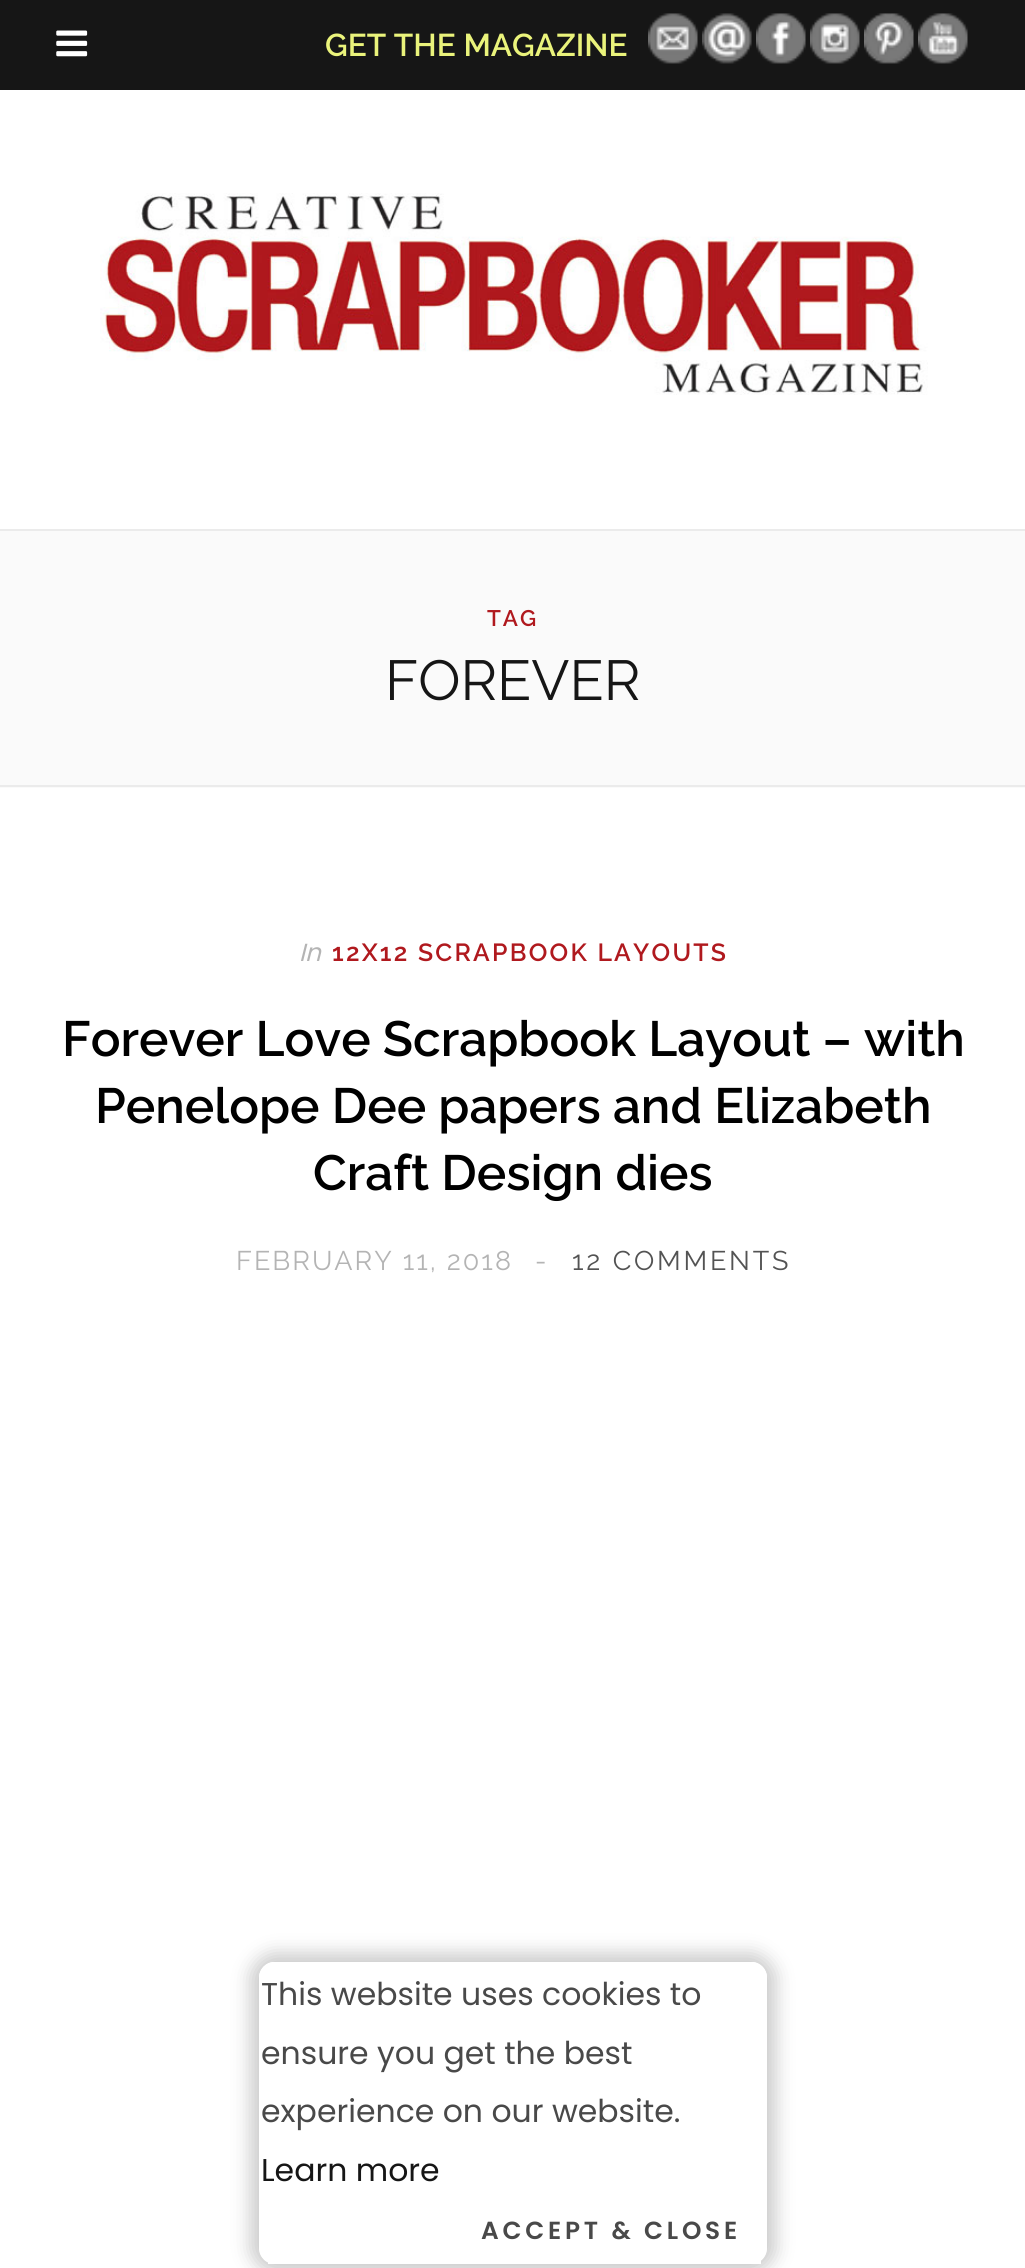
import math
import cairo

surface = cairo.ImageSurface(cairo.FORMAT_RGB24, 1025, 2268)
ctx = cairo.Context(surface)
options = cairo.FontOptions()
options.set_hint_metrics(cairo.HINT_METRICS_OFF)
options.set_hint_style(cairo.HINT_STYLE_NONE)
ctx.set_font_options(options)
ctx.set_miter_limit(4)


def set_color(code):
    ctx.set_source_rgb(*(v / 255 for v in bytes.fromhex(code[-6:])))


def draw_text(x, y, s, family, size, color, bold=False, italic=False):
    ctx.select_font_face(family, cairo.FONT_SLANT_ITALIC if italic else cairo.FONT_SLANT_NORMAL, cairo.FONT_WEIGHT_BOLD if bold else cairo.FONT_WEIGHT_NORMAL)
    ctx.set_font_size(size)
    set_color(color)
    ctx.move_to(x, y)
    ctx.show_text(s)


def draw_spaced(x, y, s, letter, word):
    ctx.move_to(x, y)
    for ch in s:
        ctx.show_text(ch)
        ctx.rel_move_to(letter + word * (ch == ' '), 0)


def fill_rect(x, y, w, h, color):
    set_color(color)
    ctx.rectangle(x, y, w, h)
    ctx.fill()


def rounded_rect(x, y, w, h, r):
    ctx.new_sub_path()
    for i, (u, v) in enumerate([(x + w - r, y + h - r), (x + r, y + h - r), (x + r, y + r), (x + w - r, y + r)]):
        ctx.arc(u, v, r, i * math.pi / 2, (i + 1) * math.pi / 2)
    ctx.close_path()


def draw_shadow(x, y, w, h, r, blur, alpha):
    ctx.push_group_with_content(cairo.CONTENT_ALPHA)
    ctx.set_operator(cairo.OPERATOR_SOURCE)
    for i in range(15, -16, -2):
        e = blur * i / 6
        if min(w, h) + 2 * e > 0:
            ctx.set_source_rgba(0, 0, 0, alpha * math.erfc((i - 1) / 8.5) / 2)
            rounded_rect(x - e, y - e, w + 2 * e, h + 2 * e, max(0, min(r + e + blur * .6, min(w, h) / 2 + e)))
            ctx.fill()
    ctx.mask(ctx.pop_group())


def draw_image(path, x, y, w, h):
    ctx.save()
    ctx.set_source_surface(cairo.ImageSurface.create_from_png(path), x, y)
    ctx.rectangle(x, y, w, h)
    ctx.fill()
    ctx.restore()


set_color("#ffffff")
ctx.paint()
fill_rect(0, 529, 1025, 2, "#ebebeb")
fill_rect(0, 0, 1025, 90, "#161616")
draw_image("assets/img1.png", 56, 30, 32, 27)
draw_text(325, 56, "GET THE MAGAZINE", "Raleway SemiBold", 31.5, "#eaf37b")
draw_image("assets/img2.png", 648, 13, 50, 51)
draw_image("assets/img3.png", 702, 13, 50, 51)
draw_image("assets/img4.png", 756, 13, 50, 51)
draw_image("assets/img5.png", 810, 13, 50, 51)
draw_image("assets/img6.png", 864, 13, 50, 51)
draw_image("assets/img7.png", 918, 13, 50, 51)
draw_image("assets/img8.png", 100, 193, 828, 202)
fill_rect(0, 531, 1025, 257, "#fafafa")
fill_rect(0, 785, 1025, 2, "#ebebeb")
ctx.set_font_size(22.5)
set_color("#b0191e")
draw_spaced(487, 626, "TAG", 2, 0)
draw_text(385, 700, "FOREVER", "Raleway", 56.25, "#161616")
draw_text(299, 961, "In", "Poppins", 24.75, "#b4b4b4", italic=True)
ctx.select_font_face("Raleway SemiBold")
set_color("#b0191e")
draw_spaced(332, 961, "12X12 SCRAPBOOK LAYOUTS", 2.25, 0)
draw_text(62, 1056, "Forever Love Scrapbook Layout – with", "Raleway SemiBold", 49.5, "#000000")
draw_text(95, 1123, "Penelope Dee papers and Elizabeth", "Raleway SemiBold", 49.5, "#000000")
draw_text(313, 1190, "Craft Design dies", "Raleway SemiBold", 49.5, "#000000")
ctx.select_font_face("Raleway")
ctx.set_font_size(27)
set_color("#b4b4b4")
draw_spaced(236, 1270, "FEBRUARY 11, 2018", 2, 0)
draw_spaced(535, 1270, "-", 3, 0)
set_color("#535353")
draw_spaced(572, 1270, "12 COMMENTS", 2.75, 0)
ctx.save()
ctx.set_fill_rule(cairo.FILL_RULE_EVEN_ODD)
ctx.new_path()
ctx.move_to(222, 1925)
ctx.line_to(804, 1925)
ctx.line_to(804, 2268)
ctx.line_to(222, 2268)
ctx.close_path()
ctx.move_to(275, 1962)
ctx.line_to(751, 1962)
ctx.curve_to(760, 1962, 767, 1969, 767, 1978)
ctx.line_to(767, 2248)
ctx.curve_to(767, 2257, 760, 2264, 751, 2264)
ctx.line_to(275, 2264)
ctx.curve_to(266, 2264, 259, 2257, 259, 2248)
ctx.line_to(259, 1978)
ctx.curve_to(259, 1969, 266, 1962, 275, 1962)
ctx.close_path()
ctx.clip()
set_color("#cccccc")
draw_shadow(250, 1953, 526, 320, 25, 9, 1)
ctx.restore()
set_color("#ffffff")
ctx.new_path()
ctx.move_to(274, 1962)
ctx.line_to(752, 1962)
ctx.curve_to(760, 1962, 767, 1969, 767, 1978)
ctx.line_to(767, 2185)
ctx.line_to(259, 2185)
ctx.line_to(259, 1978)
ctx.curve_to(259, 1969, 266, 1962, 274, 1962)
ctx.close_path()
ctx.fill()
fill_rect(268, 2260, 493, 4, "#ffffff")
draw_text(261, 2005, "This website uses cookies to", "Poppins", 31.5, "#494949")
draw_text(261, 2064, "ensure you get the best", "Poppins", 31.5, "#494949")
draw_text(261, 2122, "experience on our website.", "Poppins", 31.5, "#494949")
draw_text(261, 2181, "Learn more", "Poppins", 31.5, "#161616")
ctx.select_font_face("Poppins SemiBold")
ctx.set_font_size(24.75)
set_color("#494949")
draw_spaced(481, 2239, "ACCEPT & CLOSE", 3.75, 0)
surface.write_to_png("output.png")
